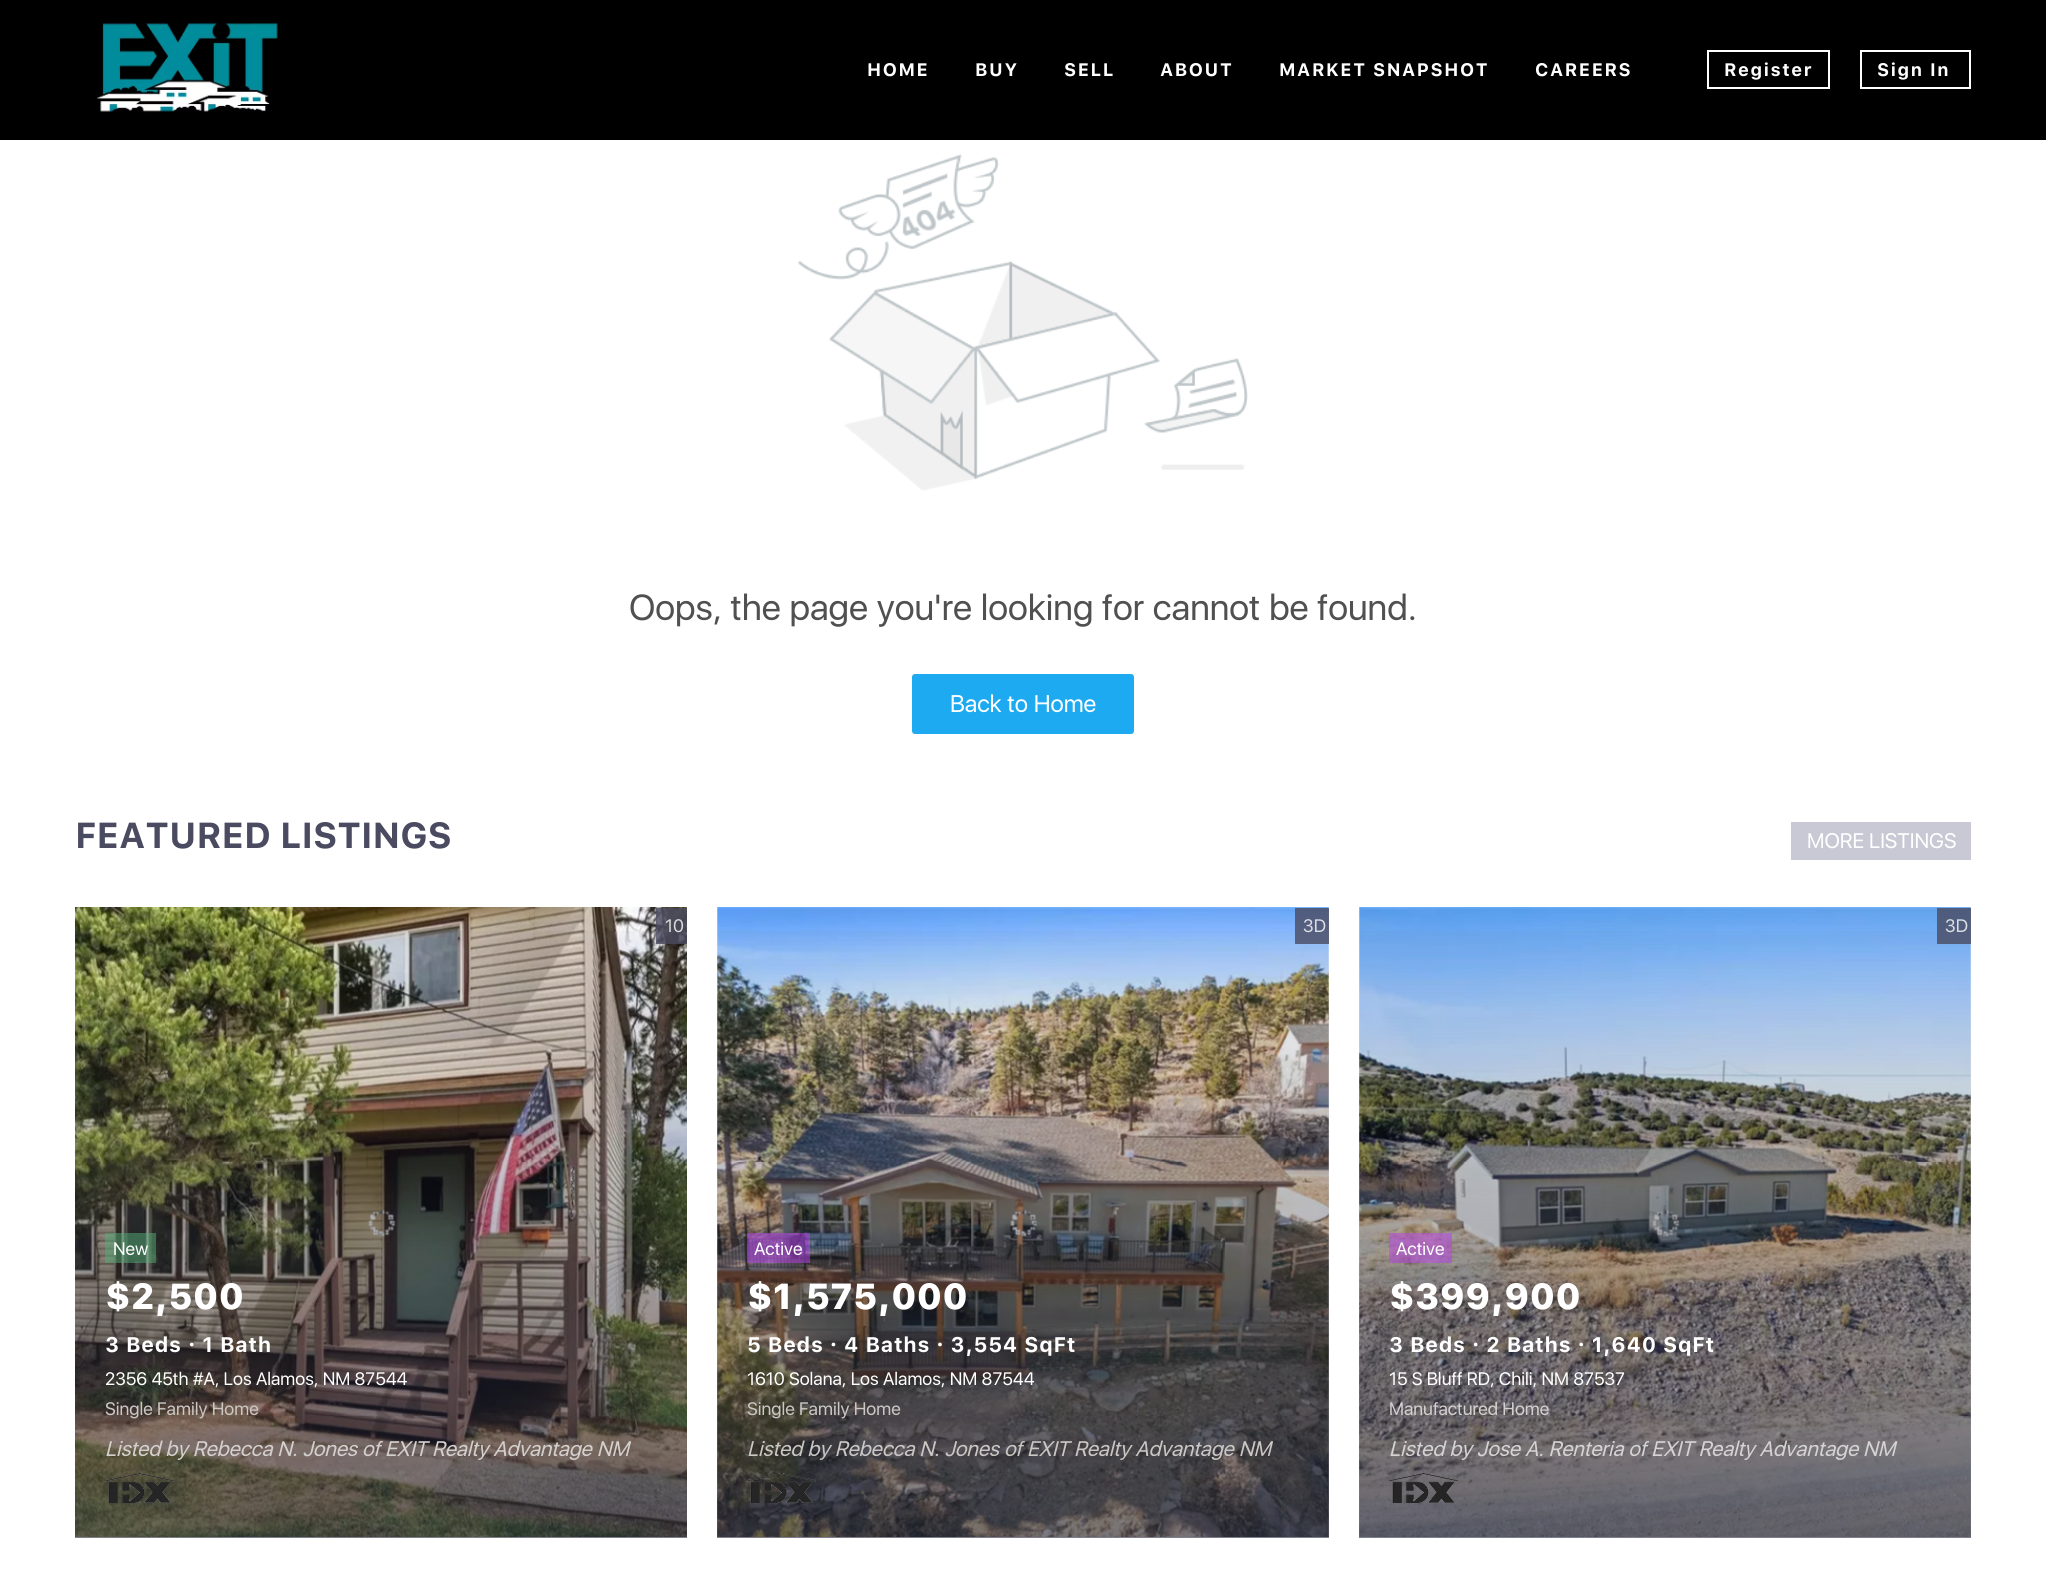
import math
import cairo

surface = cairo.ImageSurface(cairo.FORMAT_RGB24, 2046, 1587)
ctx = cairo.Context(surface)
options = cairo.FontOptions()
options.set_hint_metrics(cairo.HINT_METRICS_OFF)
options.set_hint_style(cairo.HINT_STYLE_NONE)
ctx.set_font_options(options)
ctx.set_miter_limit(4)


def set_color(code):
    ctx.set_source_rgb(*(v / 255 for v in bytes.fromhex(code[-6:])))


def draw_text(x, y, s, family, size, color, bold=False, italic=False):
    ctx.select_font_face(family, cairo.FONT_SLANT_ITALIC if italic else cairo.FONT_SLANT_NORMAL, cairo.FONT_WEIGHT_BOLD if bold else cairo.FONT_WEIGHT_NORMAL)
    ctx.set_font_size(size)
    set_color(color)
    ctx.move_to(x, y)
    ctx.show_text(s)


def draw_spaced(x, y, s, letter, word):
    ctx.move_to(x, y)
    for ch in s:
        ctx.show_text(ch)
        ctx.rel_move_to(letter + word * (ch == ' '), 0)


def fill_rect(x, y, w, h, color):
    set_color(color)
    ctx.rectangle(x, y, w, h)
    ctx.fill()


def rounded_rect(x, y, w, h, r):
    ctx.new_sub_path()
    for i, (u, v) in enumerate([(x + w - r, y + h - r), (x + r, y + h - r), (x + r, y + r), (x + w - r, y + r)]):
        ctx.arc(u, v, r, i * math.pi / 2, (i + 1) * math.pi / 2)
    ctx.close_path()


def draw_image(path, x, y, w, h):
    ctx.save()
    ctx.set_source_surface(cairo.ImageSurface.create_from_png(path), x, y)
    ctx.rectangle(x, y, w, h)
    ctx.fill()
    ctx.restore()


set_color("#ffffff")
ctx.paint()
fill_rect(0, 0, 2046, 140, "#000000")
draw_image("assets/img1.png", 96, 22, 182, 91)
ctx.select_font_face("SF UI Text", cairo.FONT_SLANT_NORMAL, cairo.FONT_WEIGHT_BOLD)
ctx.set_font_size(18)
set_color("#ffffff")
draw_spaced(867, 76, "HOME", 1.6, 0)
draw_spaced(975, 76, "BUY", 1.6, 0)
draw_spaced(1064, 76, "SELL", 1.6, 0)
draw_spaced(1160, 76, "ABOUT", 1.6, 0)
draw_spaced(1279, 76, "MARKET SNAPSHOT", 1.6, 0)
draw_spaced(1535, 76, "CAREERS", 1.6, 0)
ctx.rectangle(1708, 51, 121, 37)
ctx.stroke()
draw_spaced(1724, 76, "Register", 1.6, 0)
ctx.rectangle(1861, 51, 109, 37)
ctx.stroke()
draw_spaced(1877, 76, "Sign In", 1.6, 0)
draw_image("assets/img2.png", 798, 154, 450, 337)
draw_text(629, 620, "Oops, the page you're looking for cannot be found.", "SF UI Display", 36, "#505050")
set_color("#1daaf0")
rounded_rect(912, 674, 222, 60, 3)
ctx.fill()
draw_text(950, 712, "Back to Home", "SF UI Display", 24, "#ffffff")
draw_text(75, 848, "FEATURED LISTINGS", "SF UI Text", 36, "#4a4a60", bold=True)
fill_rect(1791, 822, 180, 38, "#c9c9d5")
draw_text(1807, 848, "MORE LISTINGS", "SF UI Display", 21, "#ffffff")
draw_image("assets/img3.png", 75, 907, 612, 630)
draw_image("assets/img4.png", 368, 1209, 28, 28)
gradient = cairo.LinearGradient(381, 908, 381, 1538)
gradient.add_color_stop_rgba(0, 0.141, 0.165, 0.239, 0)
gradient.add_color_stop_rgba(1, 0.141, 0.165, 0.239, 0.6)
gradient.add_color_stop_rgba(1, 0.141, 0.165, 0.239, 1)
ctx.set_source(gradient)
ctx.rectangle(75, 931, 612, 607)
ctx.fill()
ctx.set_source_rgba(0.29, 0.29, 0.376, 0.8)
ctx.rectangle(656, 908, 31, 36)
ctx.fill()
draw_text(665, 932, "10", "SF UI Display", 18, "#dbdbdd")
ctx.set_source_rgba(0.341, 0.686, 0.471, 0.5)
ctx.rectangle(105, 1233, 51, 30)
ctx.fill()
draw_text(113, 1255, "New", "SF UI Display", 18, "#ffffff")
draw_text(105, 1309, "$2,500", "SF UI Text Black", 36, "#ffffff")
ctx.select_font_face("SF UI Text", cairo.FONT_SLANT_NORMAL, cairo.FONT_WEIGHT_BOLD)
ctx.set_font_size(21)
draw_spaced(105, 1352, "3 Beds · 1 Bath", 0.75, 0)
draw_text(105, 1385, "2356 45th #A, Los Alamos, NM 87544", "SF UI Display", 18, "#ffffff")
draw_text(105, 1415, "Single Family Home", "SF UI Display", 18, "#cbc7c5")
draw_text(105, 1456, "Listed by Rebecca N. Jones of EXIT Realty Advantage NM", "SF UI Display", 21, "#d4d0ce", italic=True)
draw_image("assets/img5.png", 105, 1473, 69, 30)
draw_image("assets/img6.png", 717, 907, 612, 630)
draw_image("assets/img7.png", 1010, 1209, 28, 28)
gradient = cairo.LinearGradient(1023, 908, 1023, 1538)
gradient.add_color_stop_rgba(0, 0.141, 0.165, 0.239, 0)
gradient.add_color_stop_rgba(1, 0.141, 0.165, 0.239, 0.6)
gradient.add_color_stop_rgba(1, 0.141, 0.165, 0.239, 1)
ctx.set_source(gradient)
ctx.rectangle(717, 931, 612, 607)
ctx.fill()
ctx.set_source_rgba(0.29, 0.29, 0.376, 0.8)
ctx.rectangle(1295, 908, 34, 36)
ctx.fill()
draw_text(1303, 932, "3D", "SF UI Display", 18, "#dddfe5")
ctx.set_source_rgba(0.733, 0.251, 0.937, 0.5)
ctx.rectangle(747, 1233, 63, 30)
ctx.fill()
draw_text(754, 1255, "Active", "SF UI Display", 18, "#ffffff")
draw_text(747, 1309, "$1,575,000", "SF UI Text Black", 36, "#ffffff")
ctx.select_font_face("SF UI Text", cairo.FONT_SLANT_NORMAL, cairo.FONT_WEIGHT_BOLD)
ctx.set_font_size(21)
draw_spaced(747, 1352, "5 Beds · 4 Baths · 3,554 SqFt", 0.75, 0)
draw_text(747, 1385, "1610 Solana, Los Alamos, NM 87544", "SF UI Display", 18, "#ffffff")
draw_text(747, 1415, "Single Family Home", "SF UI Display", 18, "#cbc7c5")
draw_text(747, 1456, "Listed by Rebecca N. Jones of EXIT Realty Advantage NM", "SF UI Display", 21, "#cbc7c5", italic=True)
draw_image("assets/img8.png", 747, 1473, 69, 30)
draw_image("assets/img9.png", 1359, 907, 612, 630)
draw_image("assets/img10.png", 1652, 1210, 28, 27)
gradient = cairo.LinearGradient(1665, 908, 1665, 1538)
gradient.add_color_stop_rgba(0, 0.141, 0.165, 0.239, 0)
gradient.add_color_stop_rgba(1, 0.141, 0.165, 0.239, 0.6)
gradient.add_color_stop_rgba(1, 0.141, 0.165, 0.239, 1)
ctx.set_source(gradient)
ctx.rectangle(1359, 931, 612, 607)
ctx.fill()
ctx.set_source_rgba(0.29, 0.29, 0.376, 0.8)
ctx.rectangle(1937, 908, 34, 36)
ctx.fill()
draw_text(1945, 932, "3D", "SF UI Display", 18, "#dddfe5")
ctx.set_source_rgba(0.733, 0.251, 0.937, 0.5)
ctx.rectangle(1389, 1233, 63, 30)
ctx.fill()
draw_text(1396, 1255, "Active", "SF UI Display", 18, "#ffffff")
draw_text(1389, 1309, "$399,900", "SF UI Text Black", 36, "#ffffff")
ctx.select_font_face("SF UI Text", cairo.FONT_SLANT_NORMAL, cairo.FONT_WEIGHT_BOLD)
ctx.set_font_size(21)
draw_spaced(1389, 1352, "3 Beds · 2 Baths · 1,640 SqFt", 0.75, 0)
draw_text(1389, 1385, "15 S Bluff RD, Chili, NM 87537", "SF UI Display", 18, "#ffffff")
draw_text(1389, 1415, "Manufactured Home", "SF UI Display", 18, "#d4d0ce")
draw_text(1389, 1456, "Listed by Jose A. Renteria of EXIT Realty Advantage NM", "SF UI Display", 21, "#d5d3d4", italic=True)
draw_image("assets/img11.png", 1389, 1473, 69, 30)
surface.write_to_png("output.png")
